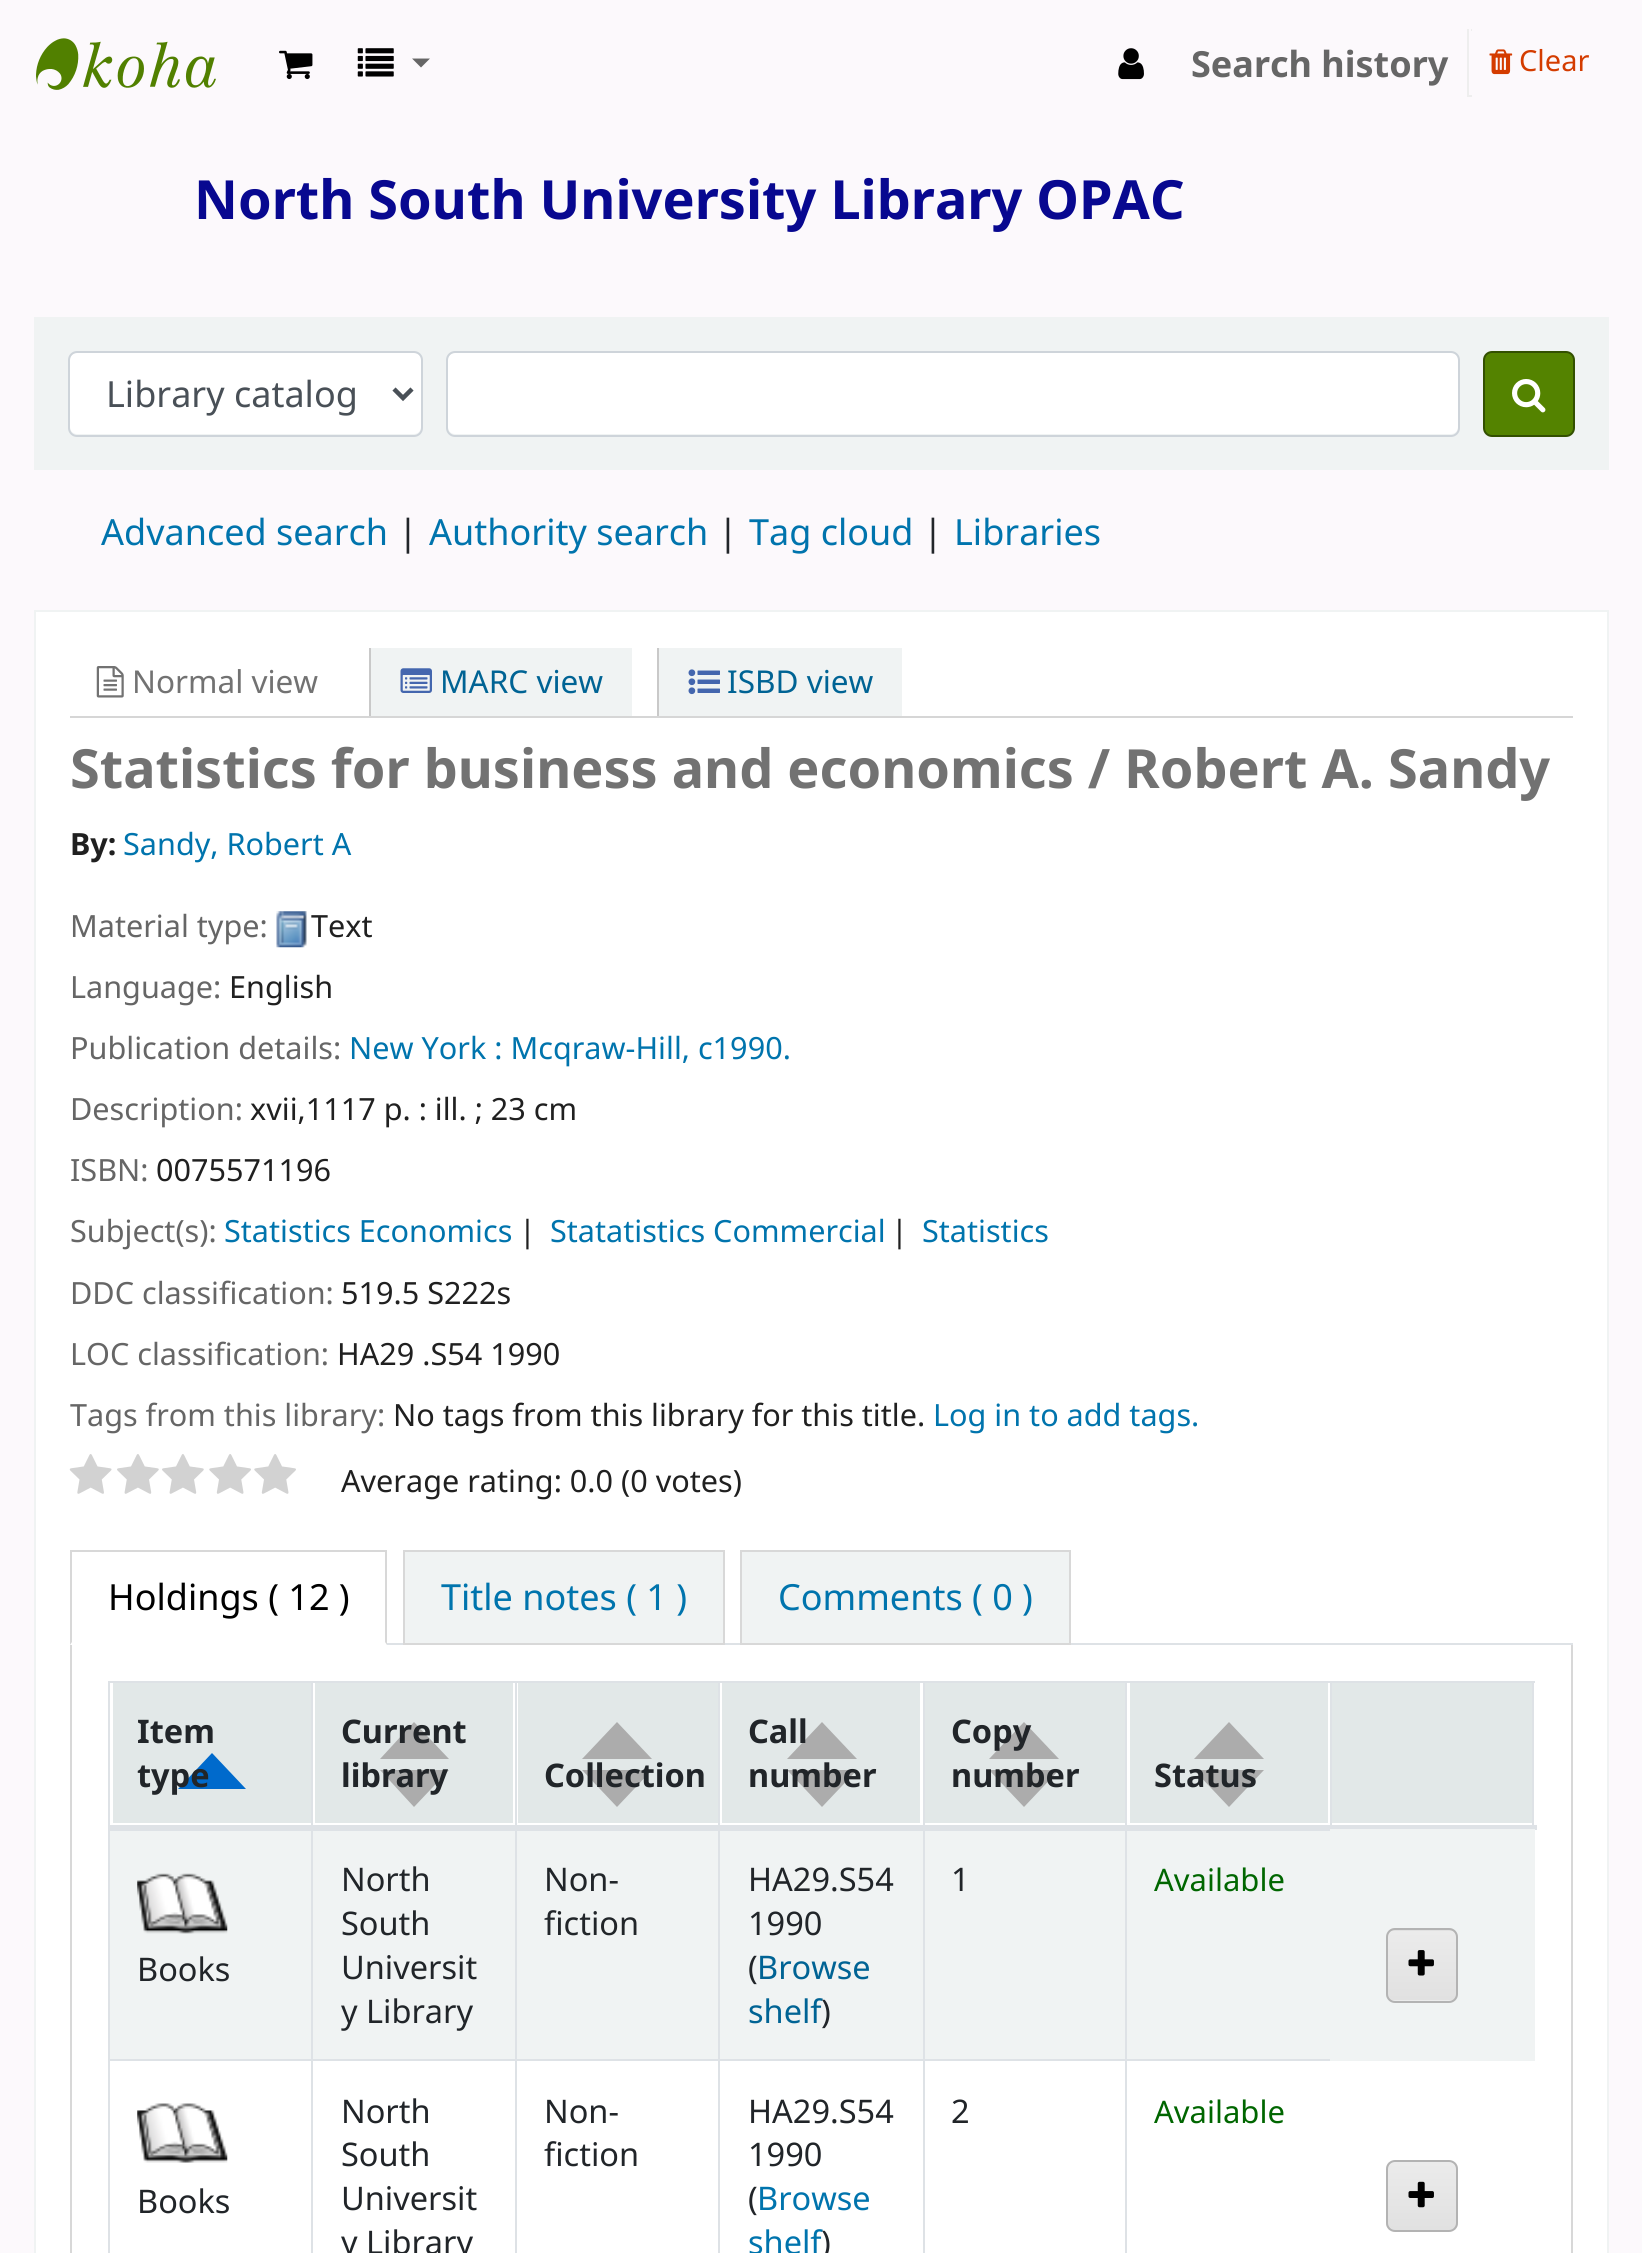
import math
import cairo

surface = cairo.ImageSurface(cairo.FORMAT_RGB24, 1642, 2253)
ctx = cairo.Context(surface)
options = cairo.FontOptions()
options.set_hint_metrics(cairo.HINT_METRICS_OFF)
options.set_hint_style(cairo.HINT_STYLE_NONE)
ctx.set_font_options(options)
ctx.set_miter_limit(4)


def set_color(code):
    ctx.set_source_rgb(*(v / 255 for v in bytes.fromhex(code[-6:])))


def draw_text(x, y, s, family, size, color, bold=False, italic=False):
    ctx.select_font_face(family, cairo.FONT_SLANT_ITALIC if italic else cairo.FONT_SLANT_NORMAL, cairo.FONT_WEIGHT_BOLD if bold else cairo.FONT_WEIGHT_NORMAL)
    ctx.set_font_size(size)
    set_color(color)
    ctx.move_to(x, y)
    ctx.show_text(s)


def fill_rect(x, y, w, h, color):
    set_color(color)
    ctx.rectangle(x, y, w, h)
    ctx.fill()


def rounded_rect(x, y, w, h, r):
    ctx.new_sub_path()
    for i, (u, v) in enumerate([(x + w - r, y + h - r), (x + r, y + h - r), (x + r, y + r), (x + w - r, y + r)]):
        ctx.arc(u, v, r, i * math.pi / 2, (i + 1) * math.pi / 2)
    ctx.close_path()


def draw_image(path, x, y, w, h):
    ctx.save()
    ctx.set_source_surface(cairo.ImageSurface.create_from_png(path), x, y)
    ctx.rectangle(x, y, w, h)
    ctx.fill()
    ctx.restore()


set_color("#fcf9fc")
ctx.paint()
draw_image("assets/img1.png", 36, 38, 180, 52)
draw_image("assets/img2.png", 279, 50, 34, 30)
draw_image("assets/img3.png", 357, 48, 37, 29)
set_color("#666666")
ctx.new_path()
ctx.move_to(412, 58.5)
ctx.line_to(430, 58.5)
ctx.line_to(421, 67.5)
ctx.close_path()
ctx.fill()
draw_image("assets/img4.png", 1118, 48, 26, 32)
draw_text(1191, 77, "Search history", "Noto Sans", 36, "#666666", bold=True)
fill_rect(1467, 29, 5, 2, "#eeeeee")
fill_rect(1469, 29, 2, 2, "#fcf9fc")
fill_rect(1467, 95, 5, 2, "#eeeeee")
fill_rect(1467, 29, 2, 68, "#eeeeee")
draw_image("assets/img5.png", 1489, 49, 24, 26)
draw_text(1519, 71, "Clear", "Noto Sans", 29, "#d43c00")
draw_text(194, 219, "North South University Library OPAC", "Noto Sans", 54, "#080890", bold=True)
fill_rect(34, 317, 1575, 153, "#f0f3f3")
set_color("#ffffff")
rounded_rect(70, 353, 351, 81, 7)
ctx.fill()
rounded_rect(69, 352, 353, 84, 8)
set_color("#ced4da")
ctx.stroke()
ctx.new_path()
ctx.move_to(394, 389)
ctx.line_to(403, 398)
ctx.line_to(412, 389)
set_color("#495057")
ctx.set_line_width(4.5)
ctx.stroke()
draw_text(106, 407, "Library catalog", "Noto Sans", 36, "#495057")
set_color("#ffffff")
rounded_rect(448, 353, 1010, 81, 7)
ctx.fill()
rounded_rect(447, 352, 1012, 84, 8)
set_color("#ced4da")
ctx.set_line_width(2)
ctx.stroke()
set_color("#548300")
rounded_rect(1484, 352, 90, 84, 8)
ctx.fill_preserve()
set_color("#335000")
ctx.stroke()
draw_image("assets/img6.png", 1512, 379, 34, 34)
draw_text(101, 545, "Advanced search", "Noto Sans", 36, "#0074ad")
draw_text(398, 545, "|", "Noto Sans", 36, "#212529")
draw_text(429, 545, "Authority search", "Noto Sans", 36, "#0074ad")
draw_text(718, 545, "|", "Noto Sans", 36, "#212529")
draw_text(749, 545, "Tag cloud", "Noto Sans", 36, "#0074ad")
draw_text(923, 545, "|", "Noto Sans", 36, "#212529")
draw_text(954, 545, "Libraries", "Noto Sans", 36, "#0074ad")
set_color("#ffffff")
ctx.rectangle(35, 611, 1573, 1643)
ctx.fill_preserve()
set_color("#f0f3f3")
ctx.stroke()
fill_rect(70, 716, 1503, 2, "#d6d6d6")
draw_image("assets/img7.png", 96, 666, 28, 32)
draw_text(132, 693, "Normal view", "Noto Sans", 31.5, "#727272")
fill_rect(371, 648, 261, 68, "#f0f3f3")
fill_rect(369, 648, 2, 68, "#c9c9c9")
draw_image("assets/img8.png", 400, 668, 32, 25)
draw_text(440, 693, "MARC view", "Noto Sans", 31.5, "#006394")
fill_rect(659, 648, 243, 68, "#f0f3f3")
fill_rect(657, 648, 2, 68, "#c9c9c9")
draw_image("assets/img9.png", 688, 669, 32, 26)
draw_text(727, 693, "ISBD view", "Noto Sans", 31.5, "#006394")
draw_text(70, 788, "Statistics for business and economics / Robert A. Sandy", "Noto Sans", 54, "#727272", bold=True)
draw_text(70, 855, "By:", "Noto Sans", 30.6, "#202020", bold=True)
draw_text(123, 855, "Sandy, Robert A", "Noto Sans", 30.6, "#0074ad")
draw_text(70, 937, "Material type:", "Noto Sans", 30.6, "#666666")
draw_image("assets/img10.png", 276, 911, 31, 37)
draw_text(311, 937, "Text", "Noto Sans", 30.6, "#202020")
draw_text(70, 998, "Language:", "Noto Sans", 30.6, "#666666")
draw_text(229, 998, "English", "Noto Sans", 30.6, "#202020")
draw_text(70, 1059, "Publication details:", "Noto Sans", 30.6, "#666666")
draw_text(349, 1059, "New York : Mcqraw-Hill, c1990.", "Noto Sans", 30.6, "#0074ad")
draw_text(70, 1120, "Description:", "Noto Sans", 30.6, "#666666")
draw_text(250, 1120, "xvii,1117 p. : ill. ; 23 cm", "Noto Sans", 30.6, "#202020")
draw_text(70, 1181, "ISBN:", "Noto Sans", 30.6, "#666666")
draw_text(156, 1181, "0075571196", "Noto Sans", 30.6, "#202020")
draw_text(70, 1242, "Subject(s):", "Noto Sans", 30.6, "#666666")
draw_text(224, 1242, "Statistics Economics", "Noto Sans", 30.6, "#0074ad")
draw_text(519, 1242, "|", "Noto Sans", 30.6, "#202020")
draw_text(550, 1242, "Statatistics Commercial", "Noto Sans", 30.6, "#0074ad")
draw_text(891, 1242, "|", "Noto Sans", 30.6, "#202020")
draw_text(922, 1242, "Statistics", "Noto Sans", 30.6, "#0074ad")
draw_text(70, 1304, "DDC classification:", "Noto Sans", 30.6, "#666666")
draw_text(341, 1304, "519.5 S222s", "Noto Sans", 30.6, "#202020")
draw_text(70, 1365, "LOC classification:", "Noto Sans", 30.6, "#666666")
draw_text(337, 1365, "HA29 .S54 1990", "Noto Sans", 30.6, "#202020")
draw_text(70, 1426, "Tags from this library:", "Noto Sans", 30.6, "#666666")
draw_text(393, 1426, "No tags from this library for this title.", "Noto Sans", 30.6, "#202020")
draw_text(933, 1426, "Log in to add tags.", "Noto Sans", 30.6, "#0074ad")
draw_image("assets/img11.png", 69, 1454, 43, 40)
draw_image("assets/img12.png", 117, 1454, 42, 40)
draw_image("assets/img12.png", 162, 1454, 42, 40)
draw_image("assets/img13.png", 209, 1454, 42, 40)
draw_image("assets/img13.png", 254, 1454, 42, 40)
draw_text(341, 1492, "Average rating: 0.0 (0 votes)", "Noto Sans", 30.6, "#202020")
fill_rect(387, 1643, 1186, 2, "#dee2e6")
fill_rect(70, 1550, 317, 2, "#d8d8d8")
ctx.new_path()
ctx.move_to(387, 1550)
ctx.line_to(387, 1645)
ctx.line_to(385, 1642)
ctx.line_to(385, 1552)
ctx.close_path()
ctx.fill()
ctx.new_path()
ctx.move_to(70, 1645)
ctx.line_to(70, 1550)
ctx.line_to(72, 1552)
ctx.line_to(72, 1642)
ctx.close_path()
ctx.fill()
draw_text(108, 1610, "Holdings ( 12 )", "Noto Sans", 36, "#000000")
set_color("#f0f3f3")
ctx.rectangle(404, 1551, 320, 93)
ctx.fill_preserve()
set_color("#d8d8d8")
ctx.stroke()
draw_text(441, 1610, "Title notes ( 1 )", "Noto Sans", 36, "#0074ad")
set_color("#f0f3f3")
ctx.rectangle(741, 1551, 329, 93)
ctx.fill_preserve()
set_color("#d8d8d8")
ctx.stroke()
draw_text(778, 1610, "Comments ( 0 )", "Noto Sans", 36, "#0074ad")
fill_rect(1571, 1645, 2, 608, "#d8d8d8")
fill_rect(70, 1645, 2, 608, "#d8d8d8")
fill_rect(108, 1681, 1427, 2, "#dee2e6")
fill_rect(1532, 1681, 2, 144, "#dee2e6")
fill_rect(108, 1681, 2, 572, "#dee2e6")
fill_rect(1332, 1683, 200, 140, "#e2e8e8")
fill_rect(1330, 1681, 2, 146, "#dee2e6")
fill_rect(311, 1681, 2, 146, "#dee2e6")
fill_rect(515, 1681, 2, 146, "#dee2e6")
fill_rect(718, 1681, 2, 146, "#dee2e6")
fill_rect(923, 1681, 2, 146, "#dee2e6")
fill_rect(1125, 1681, 2, 146, "#dee2e6")
fill_rect(1125, 1830, 207, 1, "#dee2e6")
fill_rect(1125, 2059, 207, 2, "#dee2e6")
fill_rect(1125, 2059, 2, 194, "#dee2e6")
fill_rect(923, 2059, 204, 2, "#dee2e6")
fill_rect(1125, 1829, 2, 232, "#dee2e6")
fill_rect(923, 1830, 204, 1, "#dee2e6")
fill_rect(923, 2059, 2, 194, "#dee2e6")
fill_rect(718, 2059, 207, 2, "#dee2e6")
fill_rect(923, 1829, 2, 232, "#dee2e6")
fill_rect(718, 1830, 207, 1, "#dee2e6")
fill_rect(718, 2059, 2, 194, "#dee2e6")
fill_rect(515, 2059, 205, 2, "#dee2e6")
fill_rect(718, 1829, 2, 232, "#dee2e6")
fill_rect(515, 1830, 205, 1, "#dee2e6")
fill_rect(515, 2059, 2, 194, "#dee2e6")
fill_rect(311, 2059, 207, 2, "#dee2e6")
fill_rect(515, 1829, 2, 232, "#dee2e6")
fill_rect(311, 1830, 207, 1, "#dee2e6")
fill_rect(311, 2059, 2, 194, "#dee2e6")
fill_rect(108, 2059, 205, 2, "#dee2e6")
fill_rect(311, 1829, 2, 232, "#dee2e6")
fill_rect(108, 1825, 1429, 5, "#dee2e6")
fill_rect(113, 1683, 198, 140, "#e2e8e8")
set_color("#006acc")
ctx.new_path()
ctx.move_to(246, 1789)
ctx.line_to(178, 1789)
ctx.line_to(212, 1753)
ctx.close_path()
ctx.fill()
draw_text(137, 1743, "Item", "Noto Sans", 32.5, "#212529", bold=True)
draw_text(137, 1787, "type", "Noto Sans", 32.5, "#212529", bold=True)
fill_rect(315, 1683, 198, 140, "#e2e8e8")
set_color("#acacac")
ctx.new_path()
ctx.move_to(449, 1770)
ctx.line_to(380, 1770)
ctx.line_to(414, 1807)
ctx.close_path()
ctx.fill()
ctx.new_path()
ctx.move_to(449, 1759)
ctx.line_to(380, 1759)
ctx.line_to(414, 1722)
ctx.close_path()
ctx.fill()
draw_text(341, 1743, "Current", "Noto Sans", 32.5, "#212529", bold=True)
draw_text(341, 1787, "library", "Noto Sans", 32.5, "#212529", bold=True)
fill_rect(518, 1683, 200, 140, "#e2e8e8")
set_color("#acacac")
ctx.new_path()
ctx.move_to(652, 1770)
ctx.line_to(582, 1770)
ctx.line_to(617, 1807)
ctx.close_path()
ctx.fill()
ctx.new_path()
ctx.move_to(652, 1759)
ctx.line_to(582, 1759)
ctx.line_to(617, 1722)
ctx.close_path()
ctx.fill()
draw_text(544, 1787, "Collection", "Noto Sans", 32.5, "#212529", bold=True)
fill_rect(722, 1683, 198, 140, "#e2e8e8")
set_color("#acacac")
ctx.new_path()
ctx.move_to(857, 1770)
ctx.line_to(787, 1770)
ctx.line_to(822, 1807)
ctx.close_path()
ctx.fill()
ctx.new_path()
ctx.move_to(857, 1759)
ctx.line_to(787, 1759)
ctx.line_to(822, 1722)
ctx.close_path()
ctx.fill()
draw_text(748, 1743, "Call", "Noto Sans", 32.5, "#212529", bold=True)
draw_text(748, 1787, "number", "Noto Sans", 32.5, "#212529", bold=True)
fill_rect(925, 1683, 200, 140, "#e2e8e8")
set_color("#acacac")
ctx.new_path()
ctx.move_to(1059, 1770)
ctx.line_to(989, 1770)
ctx.line_to(1024, 1807)
ctx.close_path()
ctx.fill()
ctx.new_path()
ctx.move_to(1059, 1759)
ctx.line_to(989, 1759)
ctx.line_to(1024, 1722)
ctx.close_path()
ctx.fill()
draw_text(951, 1743, "Copy", "Noto Sans", 32.5, "#212529", bold=True)
draw_text(951, 1787, "number", "Noto Sans", 32.5, "#212529", bold=True)
fill_rect(1130, 1683, 198, 140, "#e2e8e8")
set_color("#acacac")
ctx.new_path()
ctx.move_to(1264, 1770)
ctx.line_to(1194, 1770)
ctx.line_to(1229, 1807)
ctx.close_path()
ctx.fill()
ctx.new_path()
ctx.move_to(1264, 1759)
ctx.line_to(1194, 1759)
ctx.line_to(1229, 1722)
ctx.close_path()
ctx.fill()
draw_text(1154, 1787, "Status", "Noto Sans", 32.5, "#212529", bold=True)
fill_rect(313, 1831, 202, 228, "#f0f3f3")
draw_text(341, 1891, "North", "Noto Sans", 32.5, "#212529")
draw_text(341, 1935, "South", "Noto Sans", 32.5, "#212529")
draw_text(341, 1979, "Universit", "Noto Sans", 32.5, "#212529")
draw_text(341, 2023, "y Library", "Noto Sans", 32.5, "#212529")
fill_rect(517, 1831, 201, 228, "#f0f3f3")
draw_text(544, 1891, "Non-", "Noto Sans", 32.5, "#212529")
draw_text(544, 1935, "fiction", "Noto Sans", 32.5, "#212529")
fill_rect(720, 1831, 203, 228, "#f0f3f3")
draw_text(748, 1891, "HA29.S54", "Noto Sans", 32.5, "#212529")
draw_text(748, 1935, "1990", "Noto Sans", 32.5, "#212529")
draw_text(748, 1979, "(", "Noto Sans", 32.5, "#212529")
draw_text(757, 1979, "Browse", "Noto Sans", 32.5, "#006394")
draw_text(748, 2023, "shelf", "Noto Sans", 32.5, "#006394")
draw_text(821, 2023, ")", "Noto Sans", 32.5, "#212529")
fill_rect(925, 1831, 200, 228, "#f0f3f3")
draw_text(951, 1891, "1", "Noto Sans", 32.5, "#212529")
fill_rect(1127, 1831, 203, 228, "#f0f3f3")
draw_text(1154, 1891, "Available", "Noto Sans", 31, "#006600")
fill_rect(1330, 1829, 205, 232, "#f0f3f3")
ctx.save()
rounded_rect(1386, 1928, 72, 75, 9)
ctx.clip()
gradient = cairo.LinearGradient(1422, 1861, 1422, 1931)
gradient.add_color_stop_rgba(0, 0.922, 0.922, 0.922, 1)
gradient.add_color_stop_rgba(1, 0.882, 0.882, 0.882, 1)
ctx.set_source(gradient)
ctx.rectangle(1386, 1928, 72, 3)
ctx.fill()
gradient = cairo.LinearGradient(1422, 1931, 1422, 2000)
gradient.add_color_stop_rgba(0, 0.922, 0.922, 0.922, 1)
gradient.add_color_stop_rgba(1, 0.882, 0.882, 0.882, 1)
ctx.set_source(gradient)
ctx.rectangle(1386, 1931, 72, 69)
ctx.fill()
gradient = cairo.LinearGradient(1422, 2000, 1422, 2070)
gradient.add_color_stop_rgba(0, 0.922, 0.922, 0.922, 1)
gradient.add_color_stop_rgba(1, 0.882, 0.882, 0.882, 1)
ctx.set_source(gradient)
ctx.rectangle(1386, 2000, 72, 3)
ctx.fill()
ctx.restore()
rounded_rect(1387, 1929, 70, 73, 8)
set_color("#b3b3b3")
ctx.stroke()
draw_image("assets/img14.png", 1408, 1950, 26, 26)
fill_rect(110, 1831, 201, 228, "#f0f3f3")
fill_rect(108, 1830, 205, 1, "#dee2e6")
draw_image("assets/img15.png", 137, 1873, 91, 61)
draw_text(137, 1981, "Books", "Noto Sans", 32.5, "#212529")
draw_text(341, 2123, "North", "Noto Sans", 32.5, "#212529")
draw_text(341, 2166, "South", "Noto Sans", 32.5, "#212529")
draw_text(341, 2210, "Universit", "Noto Sans", 32.5, "#212529")
draw_text(341, 2254, "y Library", "Noto Sans", 32.5, "#212529")
draw_text(544, 2123, "Non-", "Noto Sans", 32.5, "#212529")
draw_text(544, 2166, "fiction", "Noto Sans", 32.5, "#212529")
draw_text(748, 2123, "HA29.S54", "Noto Sans", 32.5, "#212529")
draw_text(748, 2166, "1990", "Noto Sans", 32.5, "#212529")
draw_text(748, 2210, "(", "Noto Sans", 32.5, "#212529")
draw_text(757, 2210, "Browse", "Noto Sans", 32.5, "#0074ad")
draw_text(748, 2254, "shelf", "Noto Sans", 32.5, "#0074ad")
draw_text(821, 2254, ")", "Noto Sans", 32.5, "#212529")
draw_text(951, 2123, "2", "Noto Sans", 32.5, "#212529")
draw_text(1154, 2123, "Available", "Noto Sans", 31, "#006600")
draw_image("assets/img16.png", 137, 2103, 91, 60)
draw_text(137, 2213, "Books", "Noto Sans", 32.5, "#212529")
ctx.save()
rounded_rect(1386, 2160, 72, 72, 9)
ctx.clip()
gradient = cairo.LinearGradient(1422, 2162, 1422, 2230)
gradient.add_color_stop_rgba(0, 0.922, 0.922, 0.922, 1)
gradient.add_color_stop_rgba(1, 0.882, 0.882, 0.882, 1)
ctx.set_source(gradient)
ctx.rectangle(1386, 2162, 72, 68)
ctx.fill()
ctx.restore()
rounded_rect(1387, 2161, 70, 70, 8)
set_color("#b3b3b3")
ctx.stroke()
draw_image("assets/img17.png", 1408, 2181, 26, 27)
surface.write_to_png("output.png")
